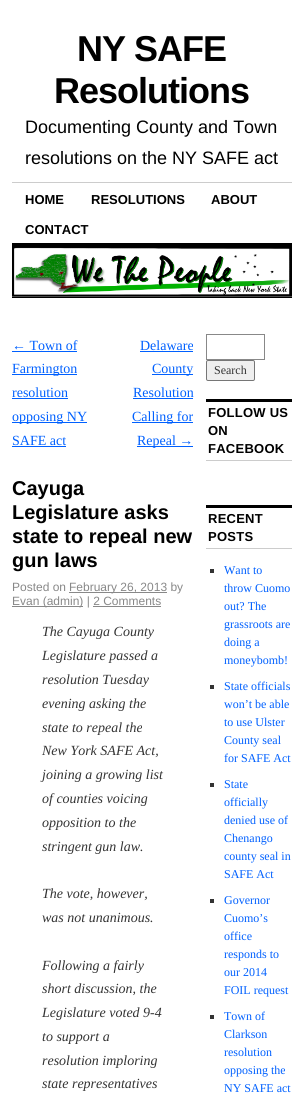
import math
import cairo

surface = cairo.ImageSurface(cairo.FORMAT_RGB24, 303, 1102)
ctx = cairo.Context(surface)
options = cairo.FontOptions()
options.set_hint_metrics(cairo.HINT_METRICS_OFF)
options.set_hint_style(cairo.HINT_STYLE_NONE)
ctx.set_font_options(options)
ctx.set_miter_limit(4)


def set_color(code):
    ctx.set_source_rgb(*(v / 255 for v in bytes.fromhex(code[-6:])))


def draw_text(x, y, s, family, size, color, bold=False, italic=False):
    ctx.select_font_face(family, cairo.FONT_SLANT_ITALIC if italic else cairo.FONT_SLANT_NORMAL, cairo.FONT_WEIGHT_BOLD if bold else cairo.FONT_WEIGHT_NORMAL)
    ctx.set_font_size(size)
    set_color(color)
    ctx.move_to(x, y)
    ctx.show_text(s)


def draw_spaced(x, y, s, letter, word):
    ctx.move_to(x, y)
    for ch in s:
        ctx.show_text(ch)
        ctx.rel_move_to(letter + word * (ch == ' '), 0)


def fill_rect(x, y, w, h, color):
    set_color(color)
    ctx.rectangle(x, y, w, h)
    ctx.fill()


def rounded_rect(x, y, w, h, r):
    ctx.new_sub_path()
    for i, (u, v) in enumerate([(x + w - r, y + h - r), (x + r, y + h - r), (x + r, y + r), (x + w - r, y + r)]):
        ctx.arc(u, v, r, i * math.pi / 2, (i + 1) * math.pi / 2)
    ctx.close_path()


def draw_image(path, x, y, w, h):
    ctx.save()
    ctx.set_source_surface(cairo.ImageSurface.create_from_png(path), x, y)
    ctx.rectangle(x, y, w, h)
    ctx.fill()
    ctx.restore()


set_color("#ffffff")
ctx.paint()
ctx.select_font_face("Liberation Sans", cairo.FONT_SLANT_NORMAL, cairo.FONT_WEIGHT_BOLD)
ctx.set_font_size(36)
set_color("#000000")
draw_spaced(77, 61, "NY SAFE", -1, 0)
draw_spaced(54, 103, "Resolutions", -1, 0)
draw_text(25, 133, "Documenting County and Town", "Liberation Sans", 18, "#000000")
draw_text(25, 164, "resolutions on the NY SAFE act", "Liberation Sans", 18, "#000000")
fill_rect(12, 182, 280, 1, "#cccccc")
draw_text(25, 204, "HOME", "Liberation Sans", 13, "#000000", bold=True)
draw_text(91, 204, "RESOLUTIONS", "Liberation Sans", 13, "#000000", bold=True)
draw_text(211, 204, "ABOUT", "Liberation Sans", 13, "#000000", bold=True)
draw_text(25, 234, "CONTACT", "Liberation Sans", 13, "#000000", bold=True)
fill_rect(12, 243, 280, 3, "#000000")
draw_image("assets/img1.png", 12, 246, 280, 51)
fill_rect(12, 297, 280, 1, "#000000")
draw_text(12, 350, "← Town of", "Liberation Serif", 14, "#0060ff")
fill_rect(12, 351, 65, 1, "#0060ff")
fill_rect(12, 374, 65, 1, "#0060ff")
draw_text(12, 373, "Farmington", "Liberation Serif", 14, "#0060ff")
draw_text(12, 397, "resolution", "Liberation Serif", 14, "#0060ff")
fill_rect(12, 398, 56, 1, "#0060ff")
fill_rect(12, 422, 75, 1, "#0060ff")
draw_text(12, 421, "opposing NY", "Liberation Serif", 14, "#0060ff")
draw_text(12, 445, "SAFE act", "Liberation Serif", 14, "#0060ff")
fill_rect(12, 446, 54, 1, "#0060ff")
draw_text(140, 350, "Delaware", "Liberation Serif", 14, "#0060ff")
fill_rect(140, 351, 53, 1, "#0060ff")
fill_rect(152, 374, 41, 1, "#0060ff")
draw_text(152, 373, "County", "Liberation Serif", 14, "#0060ff")
draw_text(133, 397, "Resolution", "Liberation Serif", 14, "#0060ff")
fill_rect(133, 398, 60, 1, "#0060ff")
fill_rect(132, 422, 61, 1, "#0060ff")
draw_text(132, 421, "Calling for", "Liberation Serif", 14, "#0060ff")
fill_rect(137, 446, 56, 1, "#0060ff")
draw_text(137, 445, "Repeal →", "Liberation Serif", 14, "#0060ff")
draw_text(12, 495, "Cayuga", "Liberation Sans", 20, "#000000", bold=True)
draw_text(12, 519, "Legislature asks", "Liberation Sans", 20, "#000000", bold=True)
draw_text(12, 543, "state to repeal new", "Liberation Sans", 20, "#000000", bold=True)
draw_text(12, 567, "gun laws", "Liberation Sans", 20, "#000000", bold=True)
draw_text(12, 591, "Posted on", "Liberation Sans", 12, "#888888")
fill_rect(69, 592, 98, 1, "#888888")
draw_text(69, 591, "February 26, 2013 by", "Liberation Sans", 12, "#888888")
fill_rect(12, 606, 71, 1, "#888888")
draw_text(12, 605, "Evan (admin) | 2 Comments", "Liberation Sans", 12, "#888888")
fill_rect(93, 606, 68, 1, "#888888")
draw_text(42, 636, "The Cayuga County", "Liberation Serif", 14, "#333333", italic=True)
draw_text(42, 660, "Legislature passed a", "Liberation Serif", 14, "#333333", italic=True)
draw_text(42, 684, "resolution Tuesday", "Liberation Serif", 14, "#333333", italic=True)
draw_text(42, 708, "evening asking the", "Liberation Serif", 14, "#333333", italic=True)
draw_text(42, 732, "state to repeal the", "Liberation Serif", 14, "#333333", italic=True)
draw_text(42, 755, "New York SAFE Act,", "Liberation Serif", 14, "#333333", italic=True)
draw_text(42, 779, "joining a growing list", "Liberation Serif", 14, "#333333", italic=True)
draw_text(42, 803, "of counties voicing", "Liberation Serif", 14, "#333333", italic=True)
draw_text(42, 827, "opposition to the", "Liberation Serif", 14, "#333333", italic=True)
draw_text(42, 851, "stringent gun law.", "Liberation Serif", 14, "#333333", italic=True)
draw_text(42, 898, "The vote, however,", "Liberation Serif", 14, "#333333", italic=True)
draw_text(42, 922, "was not unanimous.", "Liberation Serif", 14, "#333333", italic=True)
draw_text(42, 970, "Following a fairly", "Liberation Serif", 14, "#333333", italic=True)
draw_text(42, 993, "short discussion, the", "Liberation Serif", 14, "#333333", italic=True)
draw_text(42, 1017, "Legislature voted 9-4", "Liberation Serif", 14, "#333333", italic=True)
draw_text(42, 1041, "to support a", "Liberation Serif", 14, "#333333", italic=True)
draw_text(42, 1065, "resolution imploring", "Liberation Serif", 14, "#333333", italic=True)
draw_text(42, 1088, "state representatives", "Liberation Serif", 14, "#333333", italic=True)
ctx.rectangle(206.5, 334.5, 58, 25)
set_color("#888888")
ctx.set_line_width(1)
ctx.stroke()
set_color("#efefef")
rounded_rect(206.5, 360.5, 48, 20, 1.5)
ctx.fill_preserve()
set_color("#767676")
ctx.stroke()
draw_text(214, 374, "Search", "Liberation Serif", 12, "#333333")
fill_rect(206, 399, 86, 3, "#000000")
fill_rect(206, 460, 86, 1, "#cccccc")
ctx.select_font_face("Liberation Sans", cairo.FONT_SLANT_NORMAL, cairo.FONT_WEIGHT_BOLD)
ctx.set_font_size(13)
set_color("#000000")
draw_spaced(208, 417, "FOLLOW US", 0.25, 0)
draw_spaced(208, 435, "ON", 0.25, 0)
draw_spaced(208, 453, "FACEBOOK", 0.25, 0)
fill_rect(206, 505, 86, 3, "#000000")
fill_rect(206, 548, 86, 1, "#cccccc")
set_color("#000000")
draw_spaced(208, 523, "RECENT", 0.25, 0)
draw_spaced(208, 541, "POSTS", 0.25, 0)
fill_rect(210, 569, 4, 4, "#333333")
draw_text(224, 574, "Want to", "Liberation Serif", 12, "#0060ff")
draw_text(224, 592, "throw Cuomo", "Liberation Serif", 12, "#0060ff")
draw_text(224, 610, "out? The", "Liberation Serif", 12, "#0060ff")
draw_text(224, 628, "grassroots are", "Liberation Serif", 12, "#0060ff")
draw_text(224, 646, "doing a", "Liberation Serif", 12, "#0060ff")
draw_text(224, 664, "moneybomb!", "Liberation Serif", 12, "#0060ff")
fill_rect(210, 685, 4, 4, "#333333")
draw_text(224, 690, "State officials", "Liberation Serif", 12, "#0060ff")
draw_text(224, 708, "won’t be able", "Liberation Serif", 12, "#0060ff")
draw_text(224, 726, "to use Ulster", "Liberation Serif", 12, "#0060ff")
draw_text(224, 744, "County seal", "Liberation Serif", 12, "#0060ff")
draw_text(224, 762, "for SAFE Act", "Liberation Serif", 12, "#0060ff")
fill_rect(210, 783, 4, 4, "#333333")
draw_text(224, 788, "State", "Liberation Serif", 12, "#0060ff")
draw_text(224, 806, "officially", "Liberation Serif", 12, "#0060ff")
draw_text(224, 824, "denied use of", "Liberation Serif", 12, "#0060ff")
draw_text(224, 842, "Chenango", "Liberation Serif", 12, "#0060ff")
draw_text(224, 860, "county seal in", "Liberation Serif", 12, "#0060ff")
draw_text(224, 878, "SAFE Act", "Liberation Serif", 12, "#0060ff")
fill_rect(210, 899, 4, 4, "#333333")
draw_text(224, 904, "Governor", "Liberation Serif", 12, "#0060ff")
draw_text(224, 922, "Cuomo’s", "Liberation Serif", 12, "#0060ff")
draw_text(224, 940, "office", "Liberation Serif", 12, "#0060ff")
draw_text(224, 958, "responds to", "Liberation Serif", 12, "#0060ff")
draw_text(224, 976, "our 2014", "Liberation Serif", 12, "#0060ff")
draw_text(224, 994, "FOIL request", "Liberation Serif", 12, "#0060ff")
fill_rect(210, 1015, 4, 4, "#333333")
draw_text(224, 1020, "Town of", "Liberation Serif", 12, "#0060ff")
draw_text(224, 1038, "Clarkson", "Liberation Serif", 12, "#0060ff")
draw_text(224, 1056, "resolution", "Liberation Serif", 12, "#0060ff")
draw_text(224, 1074, "opposing the", "Liberation Serif", 12, "#0060ff")
draw_text(224, 1092, "NY SAFE act", "Liberation Serif", 12, "#0060ff")
surface.write_to_png("output.png")
